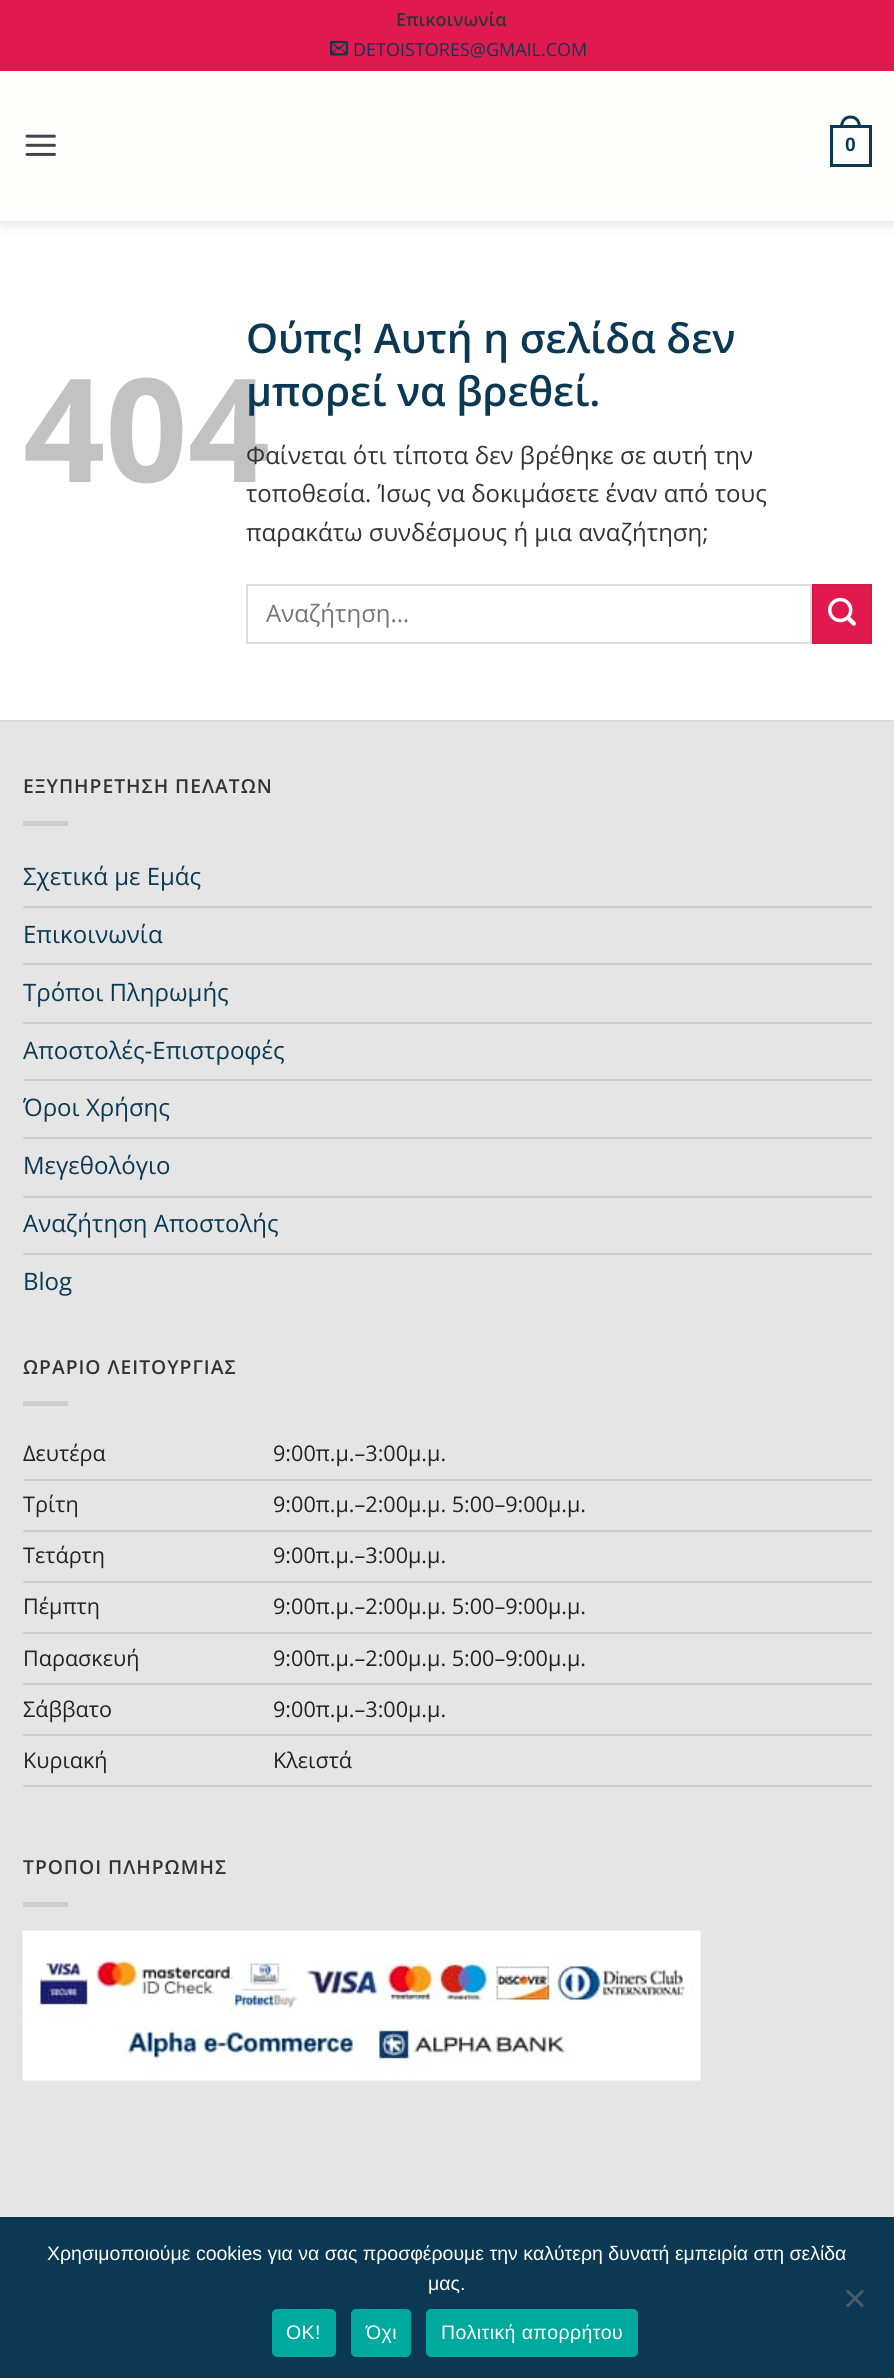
import math
import cairo

surface = cairo.ImageSurface(cairo.FORMAT_RGB24, 894, 2378)
ctx = cairo.Context(surface)
options = cairo.FontOptions()
options.set_hint_metrics(cairo.HINT_METRICS_OFF)
options.set_hint_style(cairo.HINT_STYLE_NONE)
ctx.set_font_options(options)
ctx.set_miter_limit(4)


def set_color(code):
    ctx.set_source_rgb(*(v / 255 for v in bytes.fromhex(code[-6:])))


def draw_text(x, y, s, family, size, color, bold=False, italic=False):
    ctx.select_font_face(family, cairo.FONT_SLANT_ITALIC if italic else cairo.FONT_SLANT_NORMAL, cairo.FONT_WEIGHT_BOLD if bold else cairo.FONT_WEIGHT_NORMAL)
    ctx.set_font_size(size)
    set_color(color)
    ctx.move_to(x, y)
    ctx.show_text(s)


def draw_spaced(x, y, s, letter, word):
    ctx.move_to(x, y)
    for ch in s:
        ctx.show_text(ch)
        ctx.rel_move_to(letter + word * (ch == ' '), 0)


def fill_rect(x, y, w, h, color):
    set_color(color)
    ctx.rectangle(x, y, w, h)
    ctx.fill()


def rounded_rect(x, y, w, h, r):
    ctx.new_sub_path()
    for i, (u, v) in enumerate([(x + w - r, y + h - r), (x + r, y + h - r), (x + r, y + r), (x + w - r, y + r)]):
        ctx.arc(u, v, r, i * math.pi / 2, (i + 1) * math.pi / 2)
    ctx.close_path()


def draw_shadow(x, y, w, h, r, blur, alpha):
    ctx.push_group_with_content(cairo.CONTENT_ALPHA)
    ctx.set_operator(cairo.OPERATOR_SOURCE)
    for i in range(15, -16, -2):
        e = blur * i / 6
        if min(w, h) + 2 * e > 0:
            ctx.set_source_rgba(0, 0, 0, alpha * math.erfc((i - 1) / 8.5) / 2)
            rounded_rect(x - e, y - e, w + 2 * e, h + 2 * e, max(0, min(r + e + blur * .6, min(w, h) / 2 + e)))
            ctx.fill()
    ctx.mask(ctx.pop_group())


def draw_image(path, x, y, w, h):
    ctx.save()
    ctx.set_source_surface(cairo.ImageSurface.create_from_png(path), x, y)
    ctx.rectangle(x, y, w, h)
    ctx.fill()
    ctx.restore()


set_color("#ffffff")
ctx.paint()
set_color("#000000")
draw_shadow(2, 2, 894, 220, 0, 7.5, 0.15)
fill_rect(0, 0, 894, 71, "#e01a4f")
draw_text(396, 26, "Επικοινωνία", "Open Sans SemiBold", 18, "#333333")
draw_image("assets/img1.png", 330, 40, 18, 16)
draw_text(353, 56, "DETOISTORES@GMAIL.COM", "Open Sans", 18, "#0b3954")
fill_rect(0, 71, 894, 150, "#fefefd")
draw_image("assets/img2.png", 25, 134, 31, 22)
ctx.rectangle(831.5, 126.5, 39, 39)
set_color("#0b3954")
ctx.set_line_width(3)
ctx.stroke()
ctx.set_fill_rule(cairo.FILL_RULE_EVEN_ODD)
ctx.new_path()
ctx.move_to(850.5, 115.5)
ctx.curve_to(857.5, 115.5, 861, 121, 861, 127.5)
ctx.line_to(840, 127.5)
ctx.curve_to(840, 121, 843.5, 115.5, 850.5, 115.5)
ctx.close_path()
ctx.move_to(850.5, 118.5)
ctx.curve_to(856, 118.5, 858, 123, 858, 127.5)
ctx.line_to(843, 127.5)
ctx.curve_to(843, 123, 845, 118.5, 850.5, 118.5)
ctx.close_path()
ctx.fill()
draw_text(845, 151, "0", "Liberation Sans", 19.25, "#0b3954", bold=True)
draw_text(23, 482, "404", "Open Sans", 144, "#c2c2c2", bold=True)
draw_text(246, 353, "Ούπς! Αυτή η σελίδα δεν", "Open Sans SemiBold", 40.75, "#0b3954")
draw_text(246, 406, "μπορεί να βρεθεί.", "Open Sans SemiBold", 40.75, "#0b3954")
draw_text(246, 464, "Φαίνεται ότι τίποτα δεν βρέθηκε σε αυτή την", "Open Sans", 24, "#333333")
draw_text(246, 502, "τοποθεσία. Ίσως να δοκιμάσετε έναν από τους", "Open Sans", 24, "#333333")
draw_text(246, 541, "παρακάτω συνδέσμους ή μια αναζήτηση;", "Open Sans", 24, "#333333")
ctx.rectangle(247, 585, 564, 58)
set_color("#dddddd")
ctx.set_line_width(2)
ctx.stroke()
draw_text(266, 622, "Αναζήτηση…", "Open Sans", 24, "#757575")
set_color("#e01a4f")
ctx.rectangle(813, 585, 58, 58)
ctx.fill_preserve()
set_color("#d5194b")
ctx.stroke()
draw_image("assets/img3.png", 828, 597, 28, 29)
fill_rect(0, 722, 894, 1495, "#e5e5e5")
fill_rect(0, 720, 894, 2, "#dadada")
ctx.select_font_face("Open Sans SemiBold")
ctx.set_font_size(19.25)
set_color("#333333")
draw_spaced(23, 793, "ΕΞΥΠΗΡΕΤΗΣΗ ΠΕΛΑΤΩΝ", 1, 0)
fill_rect(23, 821, 45, 5, "#cecece")
draw_text(23, 885, "Σχετικά με Εμάς", "Open Sans", 24, "#0b3954")
fill_rect(23, 906, 849, 2, "#cecece")
draw_text(23, 943, "Επικοινωνία", "Open Sans", 24, "#0b3954")
fill_rect(23, 963, 849, 2, "#cecece")
draw_text(23, 1001, "Τρόποι Πληρωμής", "Open Sans", 24, "#0b3954")
fill_rect(23, 1022, 849, 2, "#cecece")
draw_text(23, 1059, "Αποστολές-Επιστροφές", "Open Sans", 24, "#0b3954")
fill_rect(23, 1079, 849, 2, "#cecece")
draw_text(23, 1116, "Όροι Χρήσης", "Open Sans", 24, "#0b3954")
fill_rect(23, 1137, 849, 2, "#cecece")
draw_text(23, 1174, "Μεγεθολόγιο", "Open Sans", 24, "#0b3954")
fill_rect(23, 1196, 849, 2, "#cecece")
draw_text(23, 1232, "Αναζήτηση Αποστολής", "Open Sans", 24, "#0b3954")
fill_rect(23, 1253, 849, 2, "#cecece")
draw_text(23, 1290, "Blog", "Open Sans", 24, "#0b3954")
ctx.select_font_face("Open Sans SemiBold")
ctx.set_font_size(19.25)
set_color("#333333")
draw_spaced(23, 1374, "ΩΡΑΡΙΟ ΛΕΙΤΟΥΡΓΙΑΣ", 1, 0)
fill_rect(23, 1401, 45, 5, "#cecece")
fill_rect(23, 1479, 849, 2, "#cecece")
draw_text(23, 1461, "Δευτέρα", "Open Sans", 21.6, "#222222")
draw_text(273, 1461, "9:00π.μ.–3:00μ.μ.", "Open Sans", 21.6, "#222222")
fill_rect(23, 1530, 849, 2, "#cecece")
draw_text(23, 1512, "Τρίτη", "Open Sans", 21.6, "#222222")
draw_text(273, 1512, "9:00π.μ.–2:00μ.μ. 5:00–9:00μ.μ.", "Open Sans", 21.6, "#222222")
fill_rect(23, 1581, 849, 2, "#cecece")
draw_text(23, 1563, "Τετάρτη", "Open Sans", 21.6, "#222222")
draw_text(273, 1563, "9:00π.μ.–3:00μ.μ.", "Open Sans", 21.6, "#222222")
fill_rect(23, 1632, 849, 2, "#cecece")
draw_text(23, 1614, "Πέμπτη", "Open Sans", 21.6, "#222222")
draw_text(273, 1614, "9:00π.μ.–2:00μ.μ. 5:00–9:00μ.μ.", "Open Sans", 21.6, "#222222")
fill_rect(23, 1683, 849, 2, "#cecece")
draw_text(23, 1666, "Παρασκευή", "Open Sans", 21.6, "#222222")
draw_text(273, 1666, "9:00π.μ.–2:00μ.μ. 5:00–9:00μ.μ.", "Open Sans", 21.6, "#222222")
fill_rect(23, 1734, 849, 2, "#cecece")
draw_text(23, 1717, "Σάββατο", "Open Sans", 21.6, "#222222")
draw_text(273, 1717, "9:00π.μ.–3:00μ.μ.", "Open Sans", 21.6, "#222222")
fill_rect(23, 1785, 849, 2, "#cecece")
draw_text(23, 1768, "Κυριακή", "Open Sans", 21.6, "#222222")
draw_text(273, 1768, "Κλειστά", "Open Sans", 21.6, "#222222")
ctx.select_font_face("Open Sans SemiBold")
ctx.set_font_size(19.25)
set_color("#333333")
draw_spaced(23, 1874, "ΤΡΟΠΟΙ ΠΛΗΡΩΜΗΣ", 1, 0)
fill_rect(23, 1902, 45, 5, "#cecece")
draw_image("assets/img4.png", 22, 1930, 679, 151)
fill_rect(0, 2217, 894, 161, "#0b3954")
draw_text(47, 2260, "Χρησιμοποιούμε cookies για να σας προσφέρουμε την καλύτερη δυνατή εμπειρία στη σελίδα", "Liberation Sans", 19.5, "#ffffff")
draw_text(428, 2290, "μας.", "Liberation Sans", 19.5, "#ffffff")
set_color("#465d6a")
ctx.set_fill_rule(cairo.FILL_RULE_WINDING)
ctx.new_path()
ctx.move_to(862, 2289.5)
ctx.line_to(864, 2291.5)
ctx.line_to(848, 2307.5)
ctx.line_to(846, 2305.5)
ctx.close_path()
ctx.fill()
ctx.new_path()
ctx.move_to(846, 2291.5)
ctx.line_to(848, 2289.5)
ctx.line_to(864, 2305.5)
ctx.line_to(862, 2307.5)
ctx.close_path()
ctx.fill()
set_color("#00a99d")
rounded_rect(272, 2309, 64, 48, 5)
ctx.fill()
set_color("#ffffff")
draw_spaced(286, 2339, "ΟΚ!", 0.4, 0)
set_color("#00a99d")
rounded_rect(351, 2309, 60, 48, 5)
ctx.fill()
set_color("#ffffff")
draw_spaced(366, 2339, "Όχι", 0.4, 0)
set_color("#00a99d")
rounded_rect(426, 2309, 212, 48, 5)
ctx.fill()
set_color("#ffffff")
draw_spaced(441, 2339, "Πολιτική απορρήτου", 0.4, 0)
surface.write_to_png("output.png")
